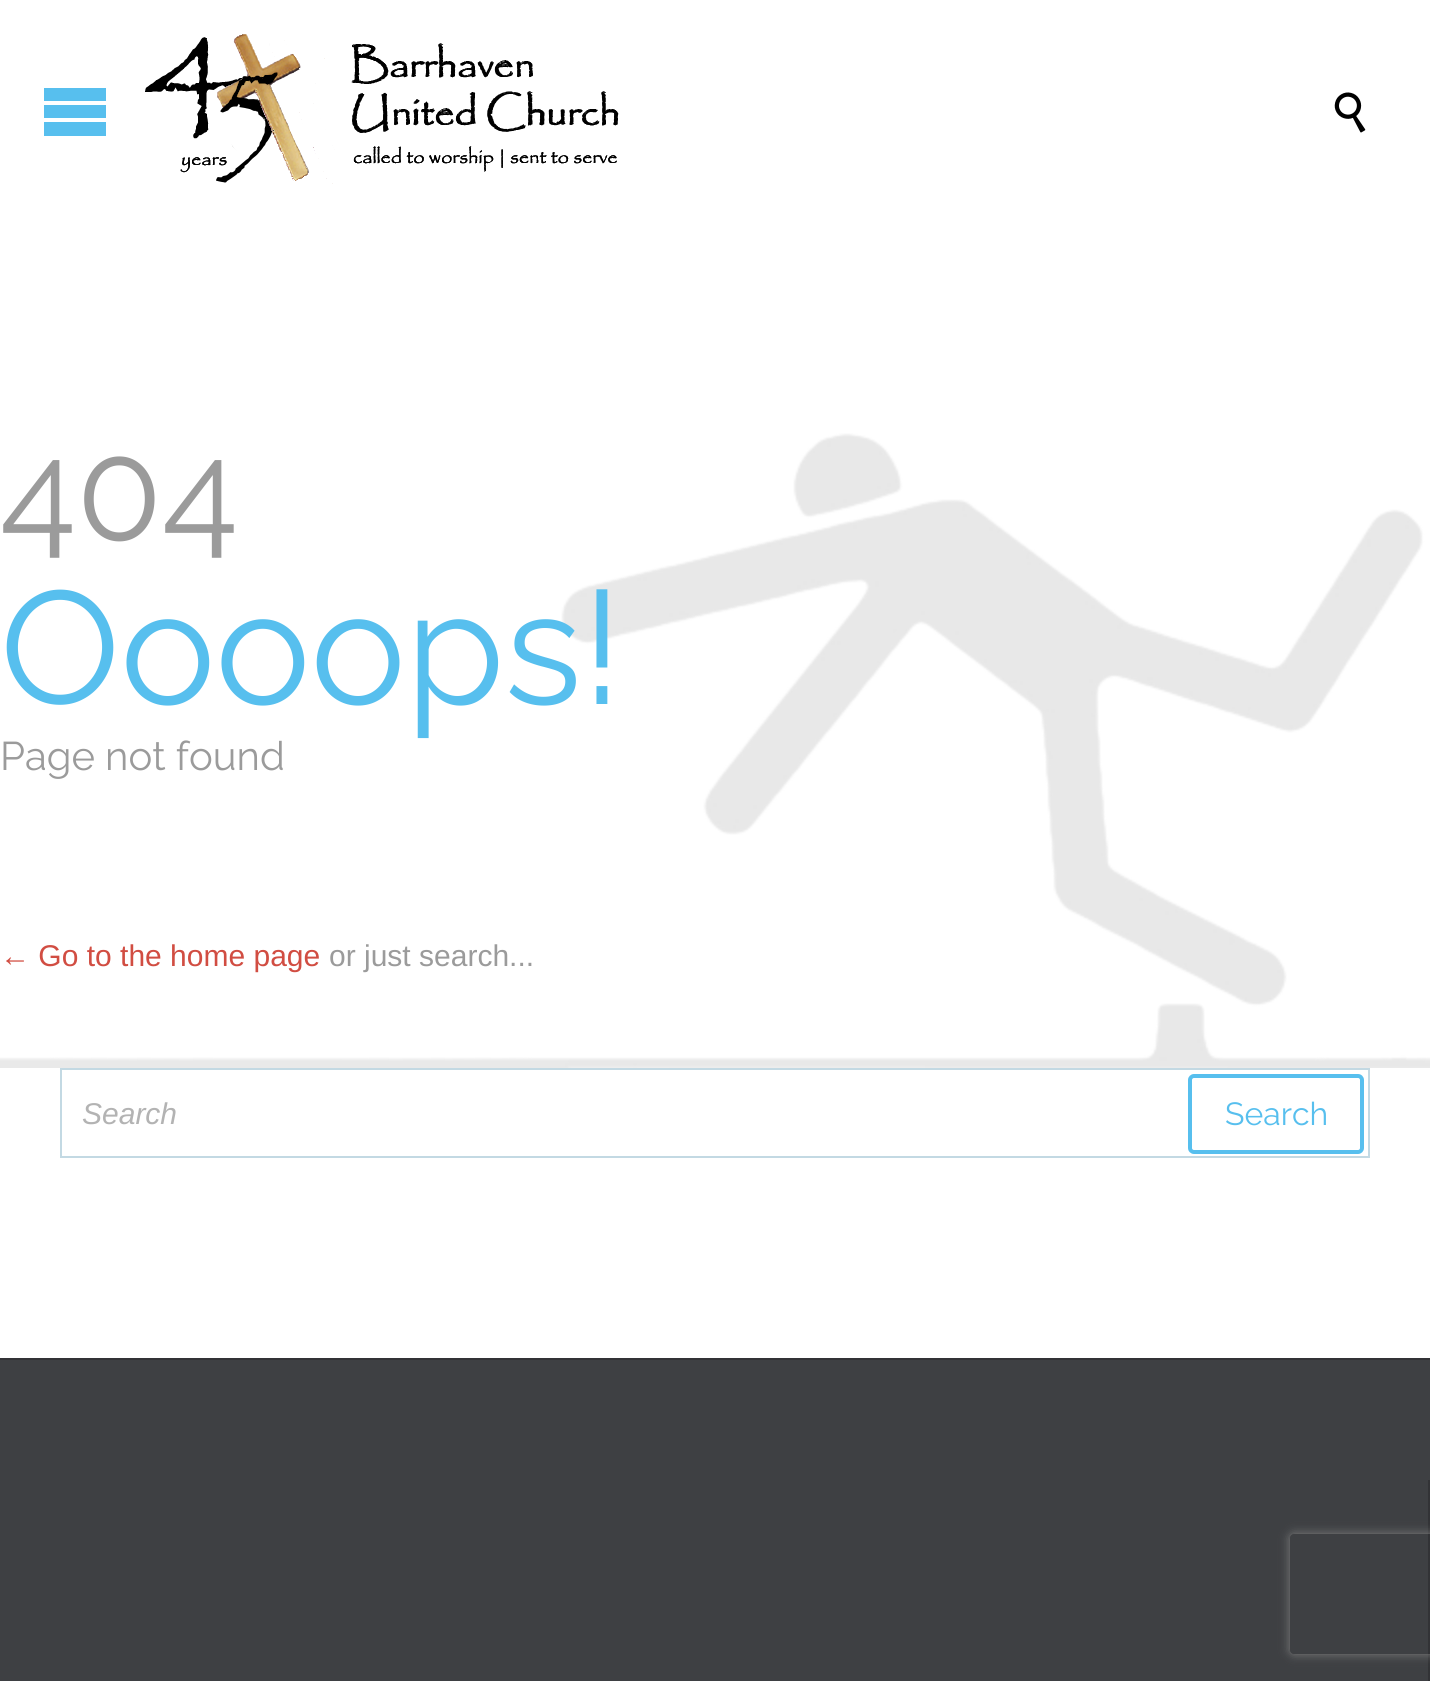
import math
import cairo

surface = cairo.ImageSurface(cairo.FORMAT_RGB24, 1430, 1681)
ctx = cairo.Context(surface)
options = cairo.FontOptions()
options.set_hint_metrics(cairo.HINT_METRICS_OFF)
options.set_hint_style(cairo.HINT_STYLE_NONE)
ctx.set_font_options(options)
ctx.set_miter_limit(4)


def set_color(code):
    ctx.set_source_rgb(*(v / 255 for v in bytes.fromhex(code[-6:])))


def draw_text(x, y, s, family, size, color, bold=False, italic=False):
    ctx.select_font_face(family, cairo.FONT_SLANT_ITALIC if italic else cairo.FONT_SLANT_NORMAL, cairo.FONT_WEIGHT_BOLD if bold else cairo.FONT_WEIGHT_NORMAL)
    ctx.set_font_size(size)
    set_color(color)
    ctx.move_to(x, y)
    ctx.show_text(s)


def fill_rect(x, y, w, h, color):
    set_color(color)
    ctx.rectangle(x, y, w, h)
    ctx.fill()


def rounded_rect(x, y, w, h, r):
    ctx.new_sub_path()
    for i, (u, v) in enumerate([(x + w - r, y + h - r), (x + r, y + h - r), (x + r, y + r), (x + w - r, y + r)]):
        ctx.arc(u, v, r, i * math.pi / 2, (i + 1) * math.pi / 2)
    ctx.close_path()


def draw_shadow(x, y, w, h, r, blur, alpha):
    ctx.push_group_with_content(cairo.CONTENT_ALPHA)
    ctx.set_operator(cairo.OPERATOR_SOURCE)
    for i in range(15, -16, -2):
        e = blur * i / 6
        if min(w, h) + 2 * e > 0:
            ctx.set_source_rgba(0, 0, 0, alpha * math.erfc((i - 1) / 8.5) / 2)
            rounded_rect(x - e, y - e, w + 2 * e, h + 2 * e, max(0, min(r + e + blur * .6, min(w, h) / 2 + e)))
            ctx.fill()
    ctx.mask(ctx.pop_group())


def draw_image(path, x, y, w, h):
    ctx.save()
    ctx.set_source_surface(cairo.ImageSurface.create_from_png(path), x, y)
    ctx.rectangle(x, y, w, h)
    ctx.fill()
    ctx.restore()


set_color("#ffffff")
ctx.paint()
set_color("#57bfee")
ctx.new_path()
ctx.move_to(44, 88)
ctx.line_to(106, 88)
ctx.line_to(106, 101)
ctx.line_to(44, 101)
ctx.close_path()
ctx.move_to(44, 105)
ctx.line_to(106, 105)
ctx.line_to(106, 118)
ctx.line_to(44, 118)
ctx.close_path()
ctx.move_to(44, 122)
ctx.line_to(106, 122)
ctx.line_to(106, 136)
ctx.line_to(44, 136)
ctx.close_path()
ctx.fill()
draw_image("assets/img1.png", 145, 34, 474, 150)
draw_image("assets/img2.png", 1334, 92, 32, 41)
draw_image("assets/img3.png", 0, 433, 1430, 635)
draw_text(0, 540, "404", "Raleway", 140, "#9b9b9b")
draw_text(0, 704, "Oooops!", "Raleway", 160, "#57bfee")
draw_text(0, 770, "Page not found", "Raleway", 40, "#9b9b9b")
draw_text(0, 966, "← Go to the home page", "Liberation Sans", 30, "#d14d42")
draw_text(329, 966, "or just search...", "Liberation Sans", 30, "#9b9b9b")
ctx.rectangle(61, 1069, 1308, 88)
set_color("#c3d9e3")
ctx.stroke()
draw_text(82, 1124, "Search", "Liberation Sans", 30, "#b3b3b3", italic=True)
rounded_rect(1190, 1076, 172, 76, 4)
set_color("#57bfee")
ctx.set_line_width(4)
ctx.stroke()
draw_text(1225, 1125, "Search", "Raleway", 32, "#57bfee")
fill_rect(0, 1360, 1430, 321, "#3e4043")
fill_rect(0, 1358, 1430, 2, "#323336")
fill_rect(1428, 1480, 2, 201, "#323336")
ctx.save()
ctx.set_fill_rule(cairo.FILL_RULE_EVEN_ODD)
ctx.new_path()
ctx.move_to(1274, 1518)
ctx.line_to(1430, 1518)
ctx.line_to(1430, 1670)
ctx.line_to(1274, 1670)
ctx.close_path()
ctx.move_to(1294, 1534)
ctx.line_to(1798, 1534)
ctx.curve_to(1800, 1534, 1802, 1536, 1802, 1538)
ctx.line_to(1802, 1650)
ctx.curve_to(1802, 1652, 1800, 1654, 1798, 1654)
ctx.line_to(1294, 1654)
ctx.curve_to(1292, 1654, 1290, 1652, 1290, 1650)
ctx.line_to(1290, 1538)
ctx.curve_to(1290, 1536, 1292, 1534, 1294, 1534)
ctx.close_path()
ctx.clip()
set_color("#808080")
draw_shadow(1290, 1534, 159, 120, 4, 5, 1)
ctx.restore()
surface.write_to_png("output.png")
